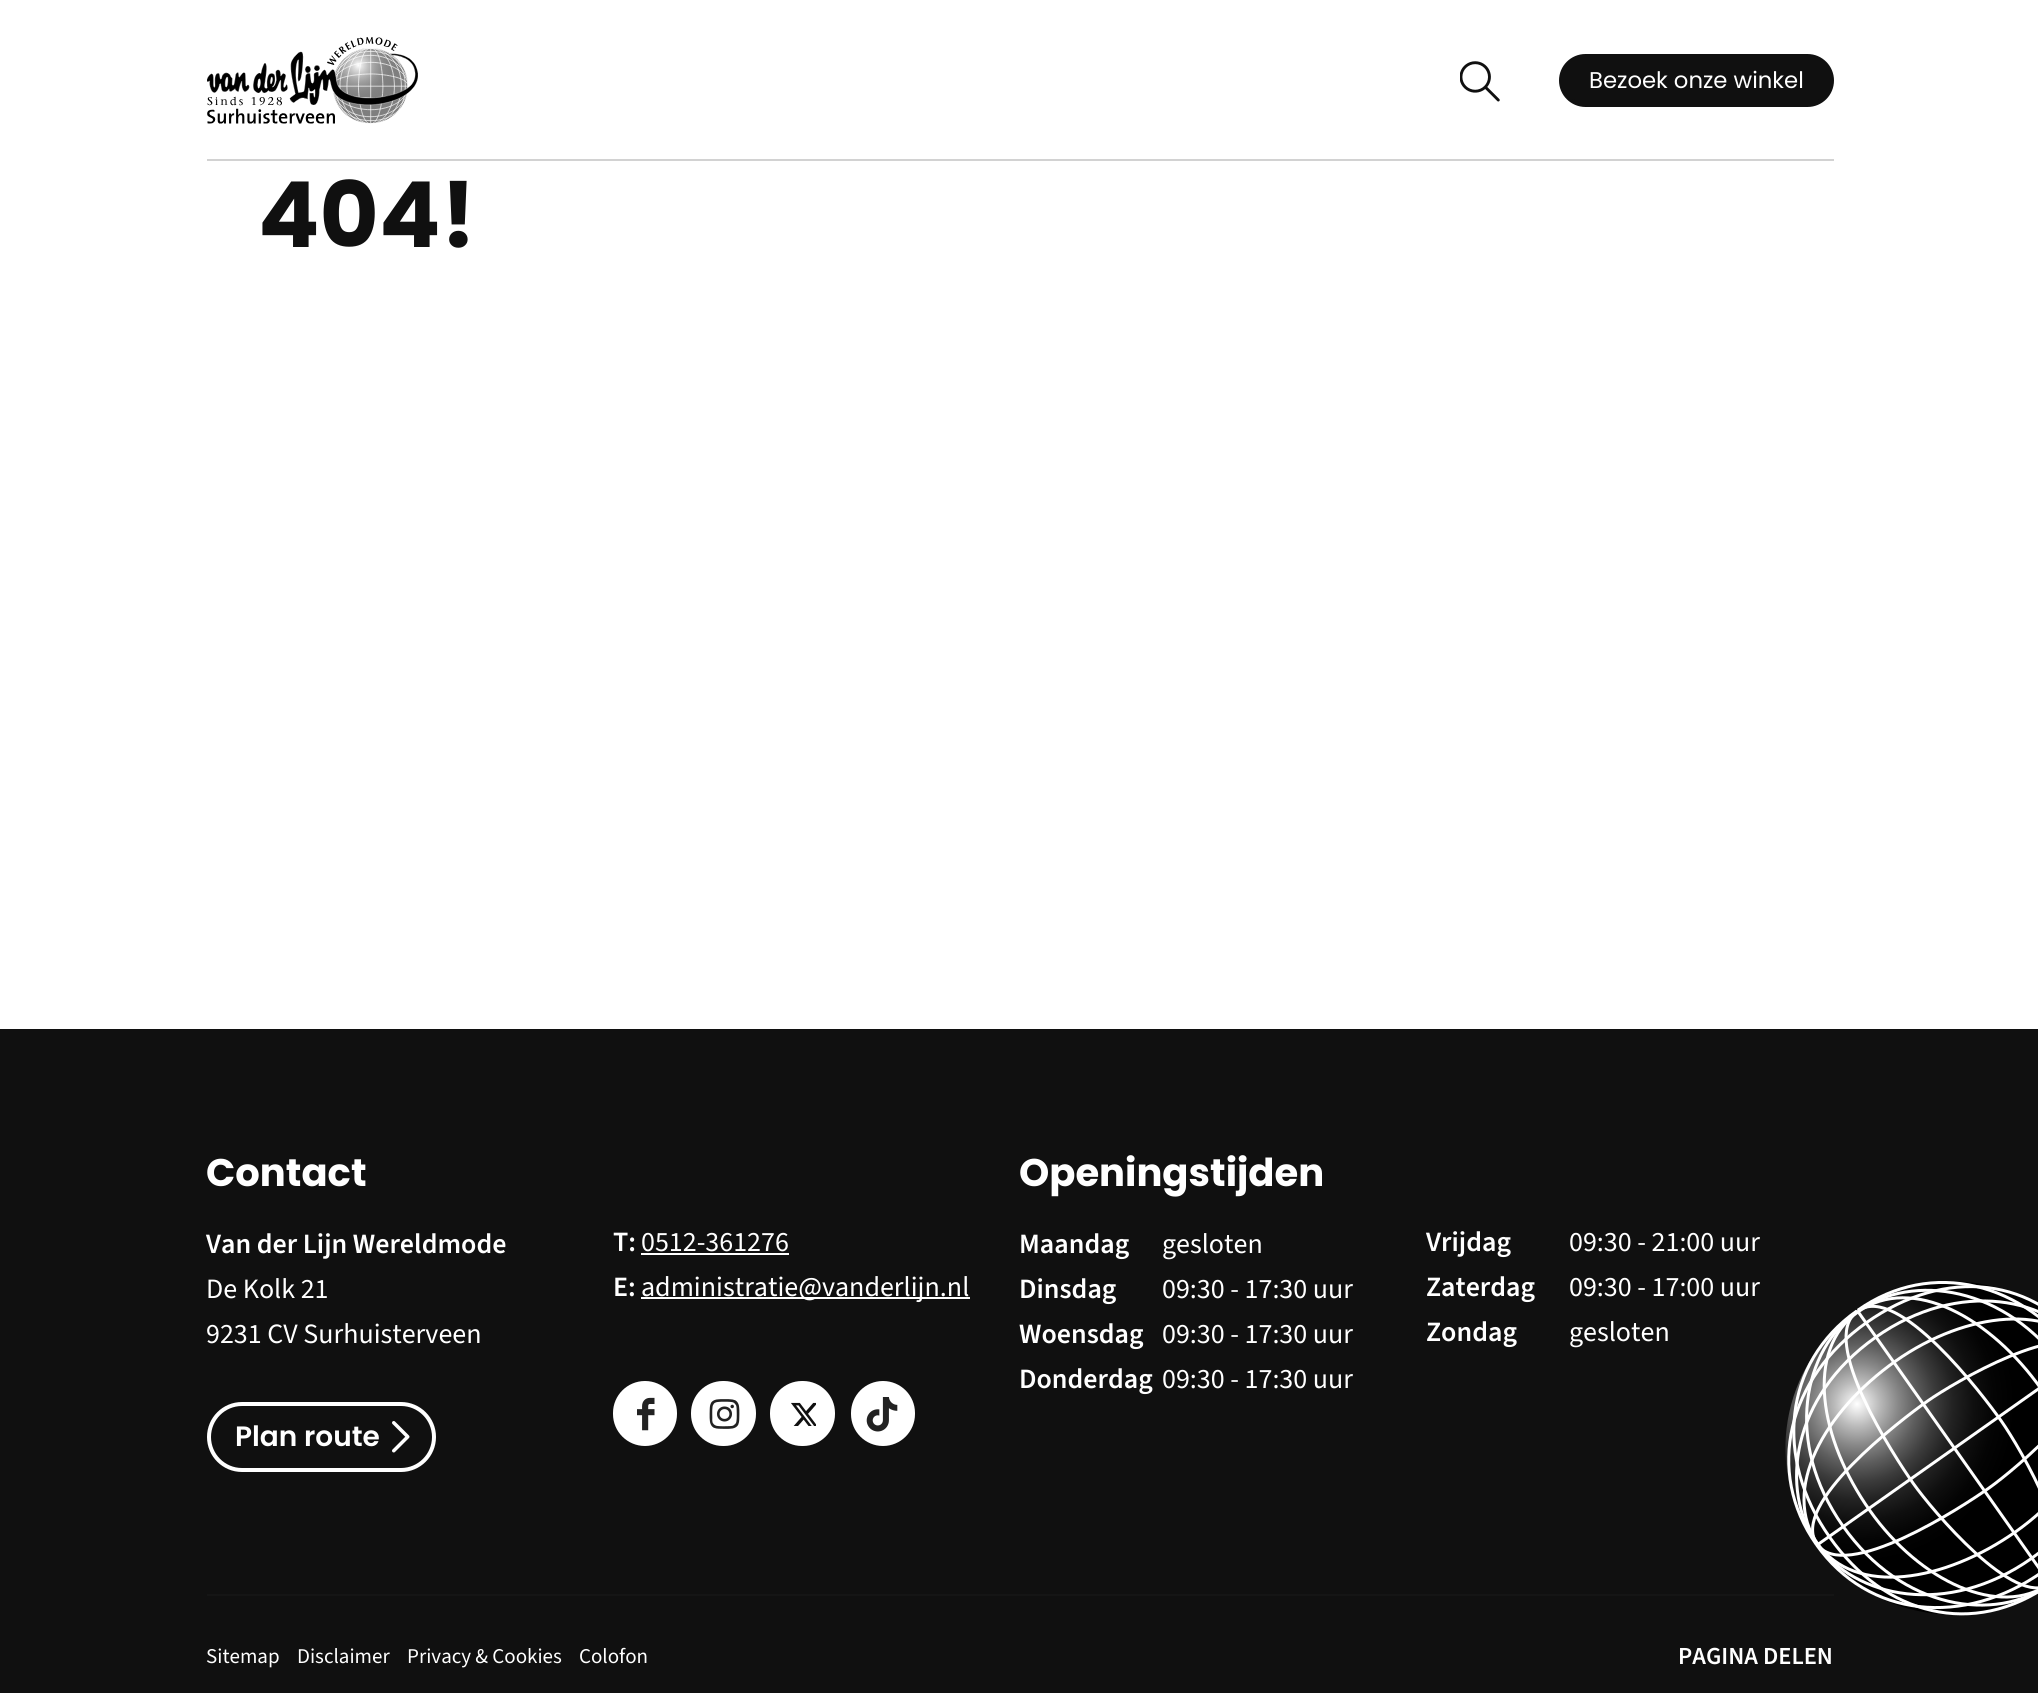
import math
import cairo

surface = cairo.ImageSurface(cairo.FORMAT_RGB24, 2038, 1693)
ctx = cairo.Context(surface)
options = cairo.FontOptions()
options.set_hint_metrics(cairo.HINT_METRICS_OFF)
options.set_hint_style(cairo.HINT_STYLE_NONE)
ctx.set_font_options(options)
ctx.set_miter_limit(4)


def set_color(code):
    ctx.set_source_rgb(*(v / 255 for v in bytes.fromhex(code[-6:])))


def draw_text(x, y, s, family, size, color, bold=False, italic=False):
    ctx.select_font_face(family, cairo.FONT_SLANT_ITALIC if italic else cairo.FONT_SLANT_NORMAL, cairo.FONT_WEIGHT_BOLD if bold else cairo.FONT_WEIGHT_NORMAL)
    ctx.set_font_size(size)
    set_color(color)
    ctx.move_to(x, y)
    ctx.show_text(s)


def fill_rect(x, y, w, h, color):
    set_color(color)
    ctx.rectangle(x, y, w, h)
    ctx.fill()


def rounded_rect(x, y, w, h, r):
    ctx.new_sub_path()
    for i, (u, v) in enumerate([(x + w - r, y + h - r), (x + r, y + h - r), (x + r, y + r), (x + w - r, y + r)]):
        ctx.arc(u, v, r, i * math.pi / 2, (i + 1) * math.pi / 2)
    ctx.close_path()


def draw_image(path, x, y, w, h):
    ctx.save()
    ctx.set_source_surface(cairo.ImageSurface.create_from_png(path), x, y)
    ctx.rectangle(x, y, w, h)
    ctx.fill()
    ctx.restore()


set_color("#ffffff")
ctx.paint()
draw_image("assets/img1.png", 207, 37, 211, 87)
draw_image("assets/img2.png", 1460, 61, 40, 41)
set_color("#101010")
rounded_rect(1561, 56, 271, 49, 24.5)
ctx.fill_preserve()
ctx.set_line_width(4)
ctx.stroke()
draw_text(1589, 88, "Bezoek onze winkel", "Poppins", 22.75, "#ffffff")
fill_rect(207, 159, 1627, 2, "#d2d2d2")
draw_text(258, 247, "404!", "Poppins", 91, "#101010", bold=True)
fill_rect(0, 1029, 2038, 664, "#101010")
draw_image("assets/img3.png", 1785, 1281, 253, 335)
draw_text(206, 1186, "Contact", "Poppins", 38.5, "#ffffff", bold=True)
draw_text(206, 1253, "Van der Lijn Wereldmode", "Source Sans 3 ExtraLight", 28, "#ffffff")
draw_text(206, 1298, "De Kolk 21", "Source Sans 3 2 ExtraLight", 28, "#ffffff")
draw_text(206, 1343, "9231 CV Surhuisterveen", "Source Sans 3 2 ExtraLight", 28, "#ffffff")
draw_image("assets/img4.png", 392, 1421, 18, 32)
rounded_rect(209, 1404, 225, 66, 33)
ctx.stroke()
draw_text(235, 1446, "Plan route", "Poppins SemiBold", 28, "#ffffff")
draw_text(613, 1251, "T:", "Source Sans 3 ExtraLight", 28, "#ffffff")
draw_text(641, 1251, "0512-361276", "Source Sans 3 2 ExtraLight", 28, "#ffffff")
fill_rect(641, 1253, 148, 2, "#ffffff")
draw_text(613, 1296, "E:", "Source Sans 3 ExtraLight", 28, "#ffffff")
fill_rect(641, 1297, 329, 2, "#ffffff")
draw_text(641, 1296, "administratie@vanderlijn.nl", "Source Sans 3 2 ExtraLight", 28, "#ffffff")
rounded_rect(613, 1381, 64, 65, 32)
ctx.fill()
draw_image("assets/img5.png", 637, 1397, 18, 34)
rounded_rect(691, 1381, 65, 65, 32)
ctx.fill()
draw_image("assets/img6.png", 709, 1399, 31, 30)
rounded_rect(770, 1381, 65, 65, 32)
ctx.fill()
draw_image("assets/img7.png", 791, 1402, 25, 24)
rounded_rect(851, 1381, 64, 65, 32)
ctx.fill()
draw_image("assets/img8.png", 866, 1397, 32, 35)
draw_text(1019, 1186, "Openingstijden", "Poppins", 38.5, "#ffffff", bold=True)
draw_text(1019, 1253, "Maandag", "Source Sans 3 ExtraLight", 28, "#ffffff")
draw_text(1162, 1253, "gesloten", "Source Sans 3 2 ExtraLight", 28, "#ffffff")
draw_text(1019, 1298, "Dinsdag", "Source Sans 3 ExtraLight", 28, "#ffffff")
draw_text(1162, 1298, "09:30 - 17:30 uur", "Source Sans 3 2 ExtraLight", 28, "#ffffff")
draw_text(1019, 1343, "Woensdag", "Source Sans 3 ExtraLight", 28, "#ffffff")
draw_text(1162, 1343, "09:30 - 17:30 uur", "Source Sans 3 2 ExtraLight", 28, "#ffffff")
draw_text(1019, 1388, "Donderdag", "Source Sans 3 ExtraLight", 28, "#ffffff")
draw_text(1162, 1388, "09:30 - 17:30 uur", "Source Sans 3 2 ExtraLight", 28, "#ffffff")
draw_text(1426, 1251, "Vrijdag", "Source Sans 3 ExtraLight", 28, "#ffffff")
draw_text(1569, 1251, "09:30 - 21:00 uur", "Source Sans 3 2 ExtraLight", 28, "#ffffff")
draw_text(1426, 1296, "Zaterdag", "Source Sans 3 ExtraLight", 28, "#ffffff")
draw_text(1569, 1296, "09:30 - 17:00 uur", "Source Sans 3 2 ExtraLight", 28, "#ffffff")
draw_text(1426, 1341, "Zondag", "Source Sans 3 ExtraLight", 28, "#ffffff")
draw_text(1569, 1341, "gesloten", "Source Sans 3 2 ExtraLight", 28, "#ffffff")
fill_rect(207, 1594, 1627, 2, "#151515")
draw_text(206, 1663, "Sitemap", "Source Sans 3 2 ExtraLight", 21, "#ffffff")
draw_text(297, 1663, "Disclaimer", "Source Sans 3 2 ExtraLight", 21, "#ffffff")
draw_text(407, 1663, "Privacy & Cookies", "Source Sans 3 2 ExtraLight", 21, "#ffffff")
draw_text(579, 1663, "Colofon", "Source Sans 3 2 ExtraLight", 21, "#ffffff")
draw_text(1678, 1664, "PAGINA DELEN", "Source Sans 3 ExtraLight", 24.5, "#ffffff")
surface.write_to_png("output.png")
